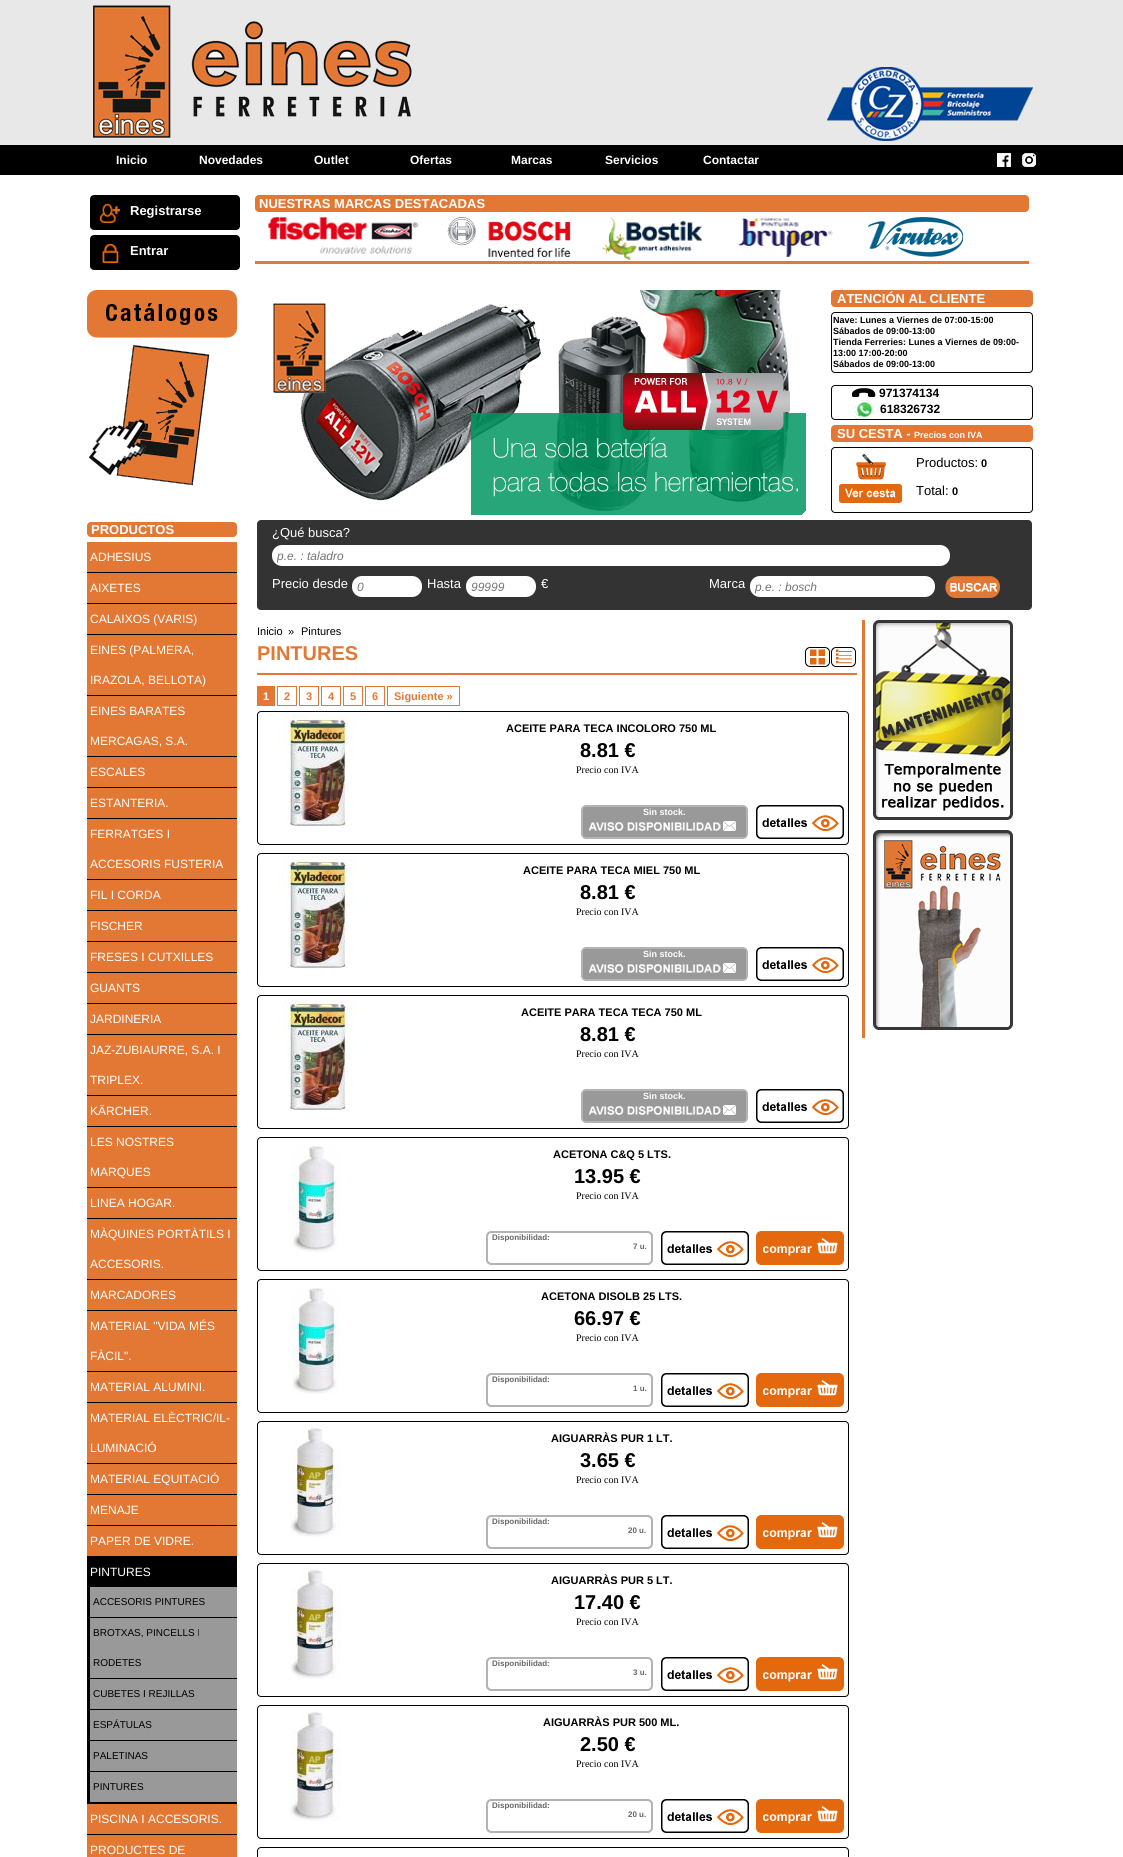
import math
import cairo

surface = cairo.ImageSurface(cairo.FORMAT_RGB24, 1123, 1857)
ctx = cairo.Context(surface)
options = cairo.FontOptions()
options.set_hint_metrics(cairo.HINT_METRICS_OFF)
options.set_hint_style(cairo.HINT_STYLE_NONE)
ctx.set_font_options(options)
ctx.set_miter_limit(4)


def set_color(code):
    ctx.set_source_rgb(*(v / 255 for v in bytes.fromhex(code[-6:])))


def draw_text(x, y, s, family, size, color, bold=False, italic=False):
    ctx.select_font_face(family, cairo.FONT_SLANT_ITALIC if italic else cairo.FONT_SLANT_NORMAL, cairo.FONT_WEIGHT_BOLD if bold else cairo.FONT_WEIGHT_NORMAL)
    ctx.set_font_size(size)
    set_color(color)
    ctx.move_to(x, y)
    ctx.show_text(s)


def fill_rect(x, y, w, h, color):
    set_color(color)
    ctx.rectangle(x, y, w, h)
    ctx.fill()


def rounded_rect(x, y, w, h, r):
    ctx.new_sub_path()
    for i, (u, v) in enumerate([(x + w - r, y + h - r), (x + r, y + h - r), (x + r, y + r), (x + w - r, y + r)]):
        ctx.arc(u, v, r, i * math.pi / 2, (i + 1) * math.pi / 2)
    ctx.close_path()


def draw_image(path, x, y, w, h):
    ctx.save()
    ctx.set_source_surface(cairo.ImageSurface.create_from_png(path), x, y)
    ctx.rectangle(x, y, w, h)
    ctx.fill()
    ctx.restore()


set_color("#ffffff")
ctx.paint()
fill_rect(0, 0, 1123, 145, "#e8e8e8")
draw_image("assets/img1.png", 93, 5, 940, 136)
fill_rect(0, 145, 1123, 30, "#000000")
draw_text(116, 164, "Inicio", "Liberation Sans", 12, "#ffffff", bold=True)
draw_text(199, 164, "Novedades", "Liberation Sans", 12, "#ffffff", bold=True)
draw_text(314, 164, "Outlet", "Liberation Sans", 12, "#ffffff", bold=True)
draw_text(410, 164, "Ofertas", "Liberation Sans", 12, "#ffffff", bold=True)
draw_text(511, 164, "Marcas", "Liberation Sans", 12, "#ffffff", bold=True)
draw_text(605, 164, "Servicios", "Liberation Sans", 12, "#ffffff", bold=True)
draw_text(703, 164, "Contactar", "Liberation Sans", 12, "#ffffff", bold=True)
draw_image("assets/img2.png", 997, 153, 14, 14)
draw_image("assets/img3.png", 1022, 153, 14, 14)
set_color("#e37834")
rounded_rect(255.5, 195.5, 773, 16, 3.5)
ctx.fill_preserve()
ctx.set_line_width(1)
ctx.stroke()
draw_text(259, 208, "NUESTRAS MARCAS DESTACADAS", "Liberation Sans", 13, "#ffffff", bold=True)
fill_rect(255, 261, 774, 3, "#e37834")
draw_image("assets/img4.png", 268, 217, 151, 37)
draw_image("assets/img5.png", 447, 217, 124, 40)
draw_image("assets/img6.png", 602, 217, 100, 43)
draw_image("assets/img7.png", 738, 217, 95, 40)
draw_image("assets/img8.png", 868, 217, 95, 40)
set_color("#000000")
rounded_rect(90, 195, 150, 35, 4)
ctx.fill()
draw_image("assets/img9.png", 100, 203, 20, 20)
draw_text(130, 215, "Registrarse", "Liberation Sans", 13, "#ffffff", bold=True)
set_color("#000000")
rounded_rect(90, 235, 150, 35, 4)
ctx.fill()
draw_image("assets/img10.png", 102, 243, 17, 20)
draw_text(130, 255, "Entrar", "Liberation Sans", 13, "#ffffff", bold=True)
draw_image("assets/img11.png", 87, 290, 150, 196)
set_color("#e37834")
rounded_rect(87, 522, 150, 15, 4)
ctx.fill()
draw_text(91, 534, "PRODUCTOS", "Liberation Sans", 13, "#ffffff", bold=True)
fill_rect(87, 542, 150, 30, "#e37834")
fill_rect(87, 572, 150, 1, "#000000")
draw_text(90, 561, "ADHESIUS", "Liberation Sans", 12, "#ffffff")
fill_rect(87, 573, 150, 30, "#e37834")
fill_rect(87, 603, 150, 1, "#000000")
draw_text(90, 592, "AIXETES", "Liberation Sans", 12, "#ffffff")
fill_rect(87, 604, 150, 30, "#e37834")
fill_rect(87, 634, 150, 1, "#000000")
draw_text(90, 623, "CALAIXOS (VARIS)", "Liberation Sans", 12, "#ffffff")
fill_rect(87, 635, 150, 60, "#e37834")
fill_rect(87, 695, 150, 1, "#000000")
draw_text(90, 654, "EINES (PALMERA,", "Liberation Sans", 12, "#ffffff")
draw_text(90, 684, "IRAZOLA, BELLOTA)", "Liberation Sans", 12, "#ffffff")
fill_rect(87, 696, 150, 60, "#e37834")
fill_rect(87, 756, 150, 1, "#000000")
draw_text(90, 715, "EINES BARATES", "Liberation Sans", 12, "#ffffff")
draw_text(90, 745, "MERCAGAS, S.A.", "Liberation Sans", 12, "#ffffff")
fill_rect(87, 757, 150, 30, "#e37834")
fill_rect(87, 787, 150, 1, "#000000")
draw_text(90, 776, "ESCALES", "Liberation Sans", 12, "#ffffff")
fill_rect(87, 788, 150, 30, "#e37834")
fill_rect(87, 818, 150, 1, "#000000")
draw_text(90, 807, "ESTANTERIA.", "Liberation Sans", 12, "#ffffff")
fill_rect(87, 819, 150, 60, "#e37834")
fill_rect(87, 879, 150, 1, "#000000")
draw_text(90, 838, "FERRATGES I", "Liberation Sans", 12, "#ffffff")
draw_text(90, 868, "ACCESORIS FUSTERIA", "Liberation Sans", 12, "#ffffff")
fill_rect(87, 880, 150, 30, "#e37834")
fill_rect(87, 910, 150, 1, "#000000")
draw_text(90, 899, "FIL I CORDA", "Liberation Sans", 12, "#ffffff")
fill_rect(87, 911, 150, 30, "#e37834")
fill_rect(87, 941, 150, 1, "#000000")
draw_text(90, 930, "FISCHER", "Liberation Sans", 12, "#ffffff")
fill_rect(87, 942, 150, 30, "#e37834")
fill_rect(87, 972, 150, 1, "#000000")
draw_text(90, 961, "FRESES I CUTXILLES", "Liberation Sans", 12, "#ffffff")
fill_rect(87, 973, 150, 30, "#e37834")
fill_rect(87, 1003, 150, 1, "#000000")
draw_text(90, 992, "GUANTS", "Liberation Sans", 12, "#ffffff")
fill_rect(87, 1004, 150, 30, "#e37834")
fill_rect(87, 1034, 150, 1, "#000000")
draw_text(90, 1023, "JARDINERIA", "Liberation Sans", 12, "#ffffff")
fill_rect(87, 1035, 150, 60, "#e37834")
fill_rect(87, 1095, 150, 1, "#000000")
draw_text(90, 1054, "JAZ-ZUBIAURRE, S.A. I", "Liberation Sans", 12, "#ffffff")
draw_text(90, 1084, "TRIPLEX.", "Liberation Sans", 12, "#ffffff")
fill_rect(87, 1096, 150, 30, "#e37834")
fill_rect(87, 1126, 150, 1, "#000000")
draw_text(90, 1115, "KÄRCHER.", "Liberation Sans", 12, "#ffffff")
fill_rect(87, 1127, 150, 60, "#e37834")
fill_rect(87, 1187, 150, 1, "#000000")
draw_text(90, 1146, "LES NOSTRES", "Liberation Sans", 12, "#ffffff")
draw_text(90, 1176, "MARQUES", "Liberation Sans", 12, "#ffffff")
fill_rect(87, 1188, 150, 30, "#e37834")
fill_rect(87, 1218, 150, 1, "#000000")
draw_text(90, 1207, "LINEA HOGAR.", "Liberation Sans", 12, "#ffffff")
fill_rect(87, 1219, 150, 60, "#e37834")
fill_rect(87, 1279, 150, 1, "#000000")
draw_text(90, 1238, "MÀQUINES PORTÀTILS I", "Liberation Sans", 12, "#ffffff")
draw_text(90, 1268, "ACCESORIS.", "Liberation Sans", 12, "#ffffff")
fill_rect(87, 1280, 150, 30, "#e37834")
fill_rect(87, 1310, 150, 1, "#000000")
draw_text(90, 1299, "MARCADORES", "Liberation Sans", 12, "#ffffff")
fill_rect(87, 1311, 150, 60, "#e37834")
fill_rect(87, 1371, 150, 1, "#000000")
draw_text(90, 1330, "MATERIAL \"VIDA MÉS", "Liberation Sans", 12, "#ffffff")
draw_text(90, 1360, "FÀCIL\".", "Liberation Sans", 12, "#ffffff")
fill_rect(87, 1372, 150, 30, "#e37834")
fill_rect(87, 1402, 150, 1, "#000000")
draw_text(90, 1391, "MATERIAL ALUMINI.", "Liberation Sans", 12, "#ffffff")
fill_rect(87, 1403, 150, 60, "#e37834")
fill_rect(87, 1463, 150, 1, "#000000")
draw_text(90, 1422, "MATERIAL ELÈCTRIC/IL-", "Liberation Sans", 12, "#ffffff")
draw_text(90, 1452, "LUMINACIÓ", "Liberation Sans", 12, "#ffffff")
fill_rect(87, 1464, 150, 30, "#e37834")
fill_rect(87, 1494, 150, 1, "#000000")
draw_text(90, 1483, "MATERIAL EQUITACIÓ", "Liberation Sans", 12, "#ffffff")
fill_rect(87, 1495, 150, 30, "#e37834")
fill_rect(87, 1525, 150, 1, "#000000")
draw_text(90, 1514, "MENAJE", "Liberation Sans", 12, "#ffffff")
fill_rect(87, 1526, 150, 30, "#e37834")
fill_rect(87, 1556, 150, 248, "#000000")
draw_text(90, 1545, "PAPER DE VIDRE.", "Liberation Sans", 12, "#ffffff")
draw_text(90, 1576, "PINTURES", "Liberation Sans", 12, "#ffffff")
fill_rect(90, 1587, 147, 30, "#999999")
draw_text(93, 1605, "ACCESORIS PINTURES", "Liberation Sans", 10, "#000000")
fill_rect(90, 1618, 147, 60, "#999999")
draw_text(93, 1636, "BROTXAS, PINCELLS I", "Liberation Sans", 10, "#000000")
draw_text(93, 1666, "RODETES", "Liberation Sans", 10, "#000000")
fill_rect(90, 1679, 147, 30, "#999999")
draw_text(93, 1697, "CUBETES I REJILLAS", "Liberation Sans", 10, "#000000")
fill_rect(90, 1710, 147, 30, "#999999")
draw_text(93, 1728, "ESPÁTULAS", "Liberation Sans", 10, "#000000")
fill_rect(90, 1741, 147, 30, "#999999")
draw_text(93, 1759, "PALETINAS", "Liberation Sans", 10, "#000000")
fill_rect(90, 1772, 147, 30, "#999999")
draw_text(93, 1790, "PINTURES", "Liberation Sans", 10, "#000000")
fill_rect(87, 1804, 150, 30, "#e37834")
fill_rect(87, 1834, 150, 1, "#000000")
draw_text(90, 1823, "PISCINA I ACCESORIS.", "Liberation Sans", 12, "#ffffff")
fill_rect(87, 1835, 150, 22, "#e37834")
draw_text(90, 1854, "PRODUCTES DE", "Liberation Sans", 12, "#ffffff")
draw_image("assets/img12.png", 257, 290, 550, 225)
set_color("#e37834")
rounded_rect(831.5, 290.5, 201, 16, 3.5)
ctx.fill_preserve()
ctx.stroke()
draw_text(837, 303, "ATENCIÓN AL CLIENTE", "Liberation Sans", 13, "#ffffff", bold=True)
rounded_rect(831.5, 312.5, 201, 60, 3.5)
set_color("#000000")
ctx.stroke()
draw_text(833, 323, "Nave: Lunes a Viernes de 07:00-15:00", "Liberation Sans", 9, "#000000", bold=True)
draw_text(833, 334, "Sábados de 09:00-13:00", "Liberation Sans", 9, "#000000", bold=True)
draw_text(833, 345, "Tienda Ferreries: Lunes a Viernes de 09:00-", "Liberation Sans", 9, "#000000", bold=True)
draw_text(833, 356, "13:00 17:00-20:00", "Liberation Sans", 9, "#000000", bold=True)
draw_text(833, 367, "Sábados de 09:00-13:00", "Liberation Sans", 9, "#000000", bold=True)
rounded_rect(831.5, 385.5, 201, 34, 3.5)
ctx.stroke()
draw_image("assets/img13.png", 852, 388, 24, 9)
draw_text(879, 397, "971374134", "Liberation Sans", 12, "#000000", bold=True)
draw_image("assets/img14.png", 855, 400, 19, 19)
draw_text(880, 413, "618326732", "Liberation Sans", 12, "#000000", bold=True)
set_color("#e37834")
rounded_rect(831.5, 425.5, 201, 16, 3.5)
ctx.fill_preserve()
ctx.stroke()
draw_text(837, 438, "SU CESTA -", "Liberation Sans", 13, "#ffffff", bold=True)
draw_text(914, 438, "Precios con IVA", "Liberation Sans", 9, "#ffffff", bold=True)
rounded_rect(831.5, 447.5, 201, 65, 3.5)
set_color("#000000")
ctx.stroke()
draw_image("assets/img15.png", 856, 454, 30, 26)
draw_image("assets/img16.png", 839, 484, 63, 19)
draw_text(916, 467, "Productos:", "Liberation Sans", 13, "#000000")
draw_text(981, 467, "0", "Liberation Sans", 11, "#000000", bold=True)
draw_text(916, 495, "Total:", "Liberation Sans", 13, "#000000")
draw_text(952, 495, "0", "Liberation Sans", 11, "#000000", bold=True)
set_color("#333333")
rounded_rect(257, 520, 775, 90, 4)
ctx.fill()
draw_text(272, 537, "¿Qué busca?", "Liberation Sans", 13, "#ffffff")
rounded_rect(272, 545, 678, 21, 10)
ctx.fill()
ctx.save()
ctx.rectangle(277, 549, 668, 14)
ctx.clip()
draw_text(277, 560, "p.e. : taladro", "Liberation Sans", 12, "#757575", italic=True)
ctx.restore()
draw_text(272, 588, "Precio desde", "Liberation Sans", 13, "#ffffff")
rounded_rect(352, 576, 70, 21, 10)
ctx.fill()
draw_text(357, 591, "0", "Liberation Sans", 12, "#757575", italic=True)
draw_text(427, 588, "Hasta", "Liberation Sans", 13, "#ffffff")
rounded_rect(466, 576, 70, 21, 10)
ctx.fill()
draw_text(471, 591, "99999", "Liberation Sans", 12, "#757575", italic=True)
draw_text(541, 588, "€", "Liberation Sans", 13, "#ffffff")
draw_text(709, 588, "Marca", "Liberation Sans", 13, "#ffffff")
rounded_rect(750, 576, 185, 21, 10)
ctx.fill()
ctx.save()
ctx.rectangle(755, 580, 175, 14)
ctx.clip()
draw_text(755, 591, "p.e. : bosch", "Liberation Sans", 12, "#757575", italic=True)
ctx.restore()
draw_image("assets/img17.png", 945, 576, 55, 22)
draw_text(257, 635, "Inicio", "Liberation Sans", 11, "#000000")
draw_text(288, 635, "»", "Liberation Sans", 11, "#000000")
draw_text(301, 635, "Pintures", "Liberation Sans", 11, "#000000")
draw_text(257, 660, "PINTURES", "Liberation Sans", 20, "#e37834", bold=True)
draw_image("assets/img18.png", 805, 647, 25, 20)
draw_image("assets/img19.png", 831, 647, 25, 20)
fill_rect(257, 673, 600, 2, "#e37834")
fill_rect(257, 686, 18, 20, "#e37834")
draw_text(263, 700, "1", "Liberation Sans", 11, "#ffffff", bold=True)
ctx.rectangle(277.5, 686.5, 19, 19)
set_color("#e37834")
ctx.stroke()
draw_text(284, 700, "2", "Liberation Sans", 11, "#e37834", bold=True)
ctx.rectangle(299.5, 686.5, 19, 19)
ctx.stroke()
draw_text(306, 700, "3", "Liberation Sans", 11, "#e37834", bold=True)
ctx.rectangle(321.5, 686.5, 19, 19)
ctx.stroke()
draw_text(328, 700, "4", "Liberation Sans", 11, "#e37834", bold=True)
ctx.rectangle(343.5, 686.5, 19, 19)
ctx.stroke()
draw_text(350, 700, "5", "Liberation Sans", 11, "#e37834", bold=True)
ctx.rectangle(365.5, 686.5, 19, 19)
ctx.stroke()
draw_text(372, 700, "6", "Liberation Sans", 11, "#e37834", bold=True)
ctx.rectangle(387.5, 686.5, 72, 19)
ctx.stroke()
draw_text(394, 700, "Siguiente »", "Liberation Sans", 11, "#e37834", bold=True)
rounded_rect(257.5, 711.5, 591, 133, 3.5)
set_color("#000000")
ctx.stroke()
draw_image("assets/img20.png", 276, 714, 81, 112)
draw_text(506, 732, "ACEITE PARA TECA INCOLORO 750 ML", "Liberation Sans", 11, "#000000", bold=True)
draw_text(580, 757, "8.81 €", "Liberation Sans", 20, "#000000", bold=True)
draw_text(576, 773, "Precio con IVA", "Liberation Serif", 10, "#000000")
draw_image("assets/img21.png", 581, 805, 167, 34)
draw_text(643, 815, "Sin stock.", "Liberation Sans", 9, "#ffffff", bold=True)
draw_image("assets/img22.png", 589, 821, 147, 10)
draw_image("assets/img23.png", 756, 805, 88, 34)
rounded_rect(257.5, 853.5, 591, 133, 3.5)
set_color("#000000")
ctx.stroke()
draw_image("assets/img20.png", 276, 856, 81, 112)
draw_text(523, 874, "ACEITE PARA TECA MIEL 750 ML", "Liberation Sans", 11, "#000000", bold=True)
draw_text(580, 899, "8.81 €", "Liberation Sans", 20, "#000000", bold=True)
draw_text(576, 915, "Precio con IVA", "Liberation Serif", 10, "#000000")
draw_image("assets/img21.png", 581, 947, 167, 34)
draw_text(643, 957, "Sin stock.", "Liberation Sans", 9, "#ffffff", bold=True)
draw_image("assets/img22.png", 589, 963, 147, 10)
draw_image("assets/img23.png", 756, 947, 88, 34)
rounded_rect(257.5, 995.5, 591, 133, 3.5)
set_color("#000000")
ctx.stroke()
draw_image("assets/img20.png", 276, 998, 81, 112)
draw_text(521, 1016, "ACEITE PARA TECA TECA 750 ML", "Liberation Sans", 11, "#000000", bold=True)
draw_text(580, 1041, "8.81 €", "Liberation Sans", 20, "#000000", bold=True)
draw_text(576, 1057, "Precio con IVA", "Liberation Serif", 10, "#000000")
draw_image("assets/img21.png", 581, 1089, 167, 34)
draw_text(643, 1099, "Sin stock.", "Liberation Sans", 9, "#ffffff", bold=True)
draw_image("assets/img22.png", 589, 1105, 147, 10)
draw_image("assets/img23.png", 756, 1089, 88, 34)
rounded_rect(257.5, 1137.5, 591, 133, 3.5)
set_color("#000000")
ctx.stroke()
draw_image("assets/img24.png", 291, 1146, 49, 106)
draw_text(553, 1158, "ACETONA C&Q 5 LTS.", "Liberation Sans", 11, "#000000", bold=True)
draw_text(574, 1183, "13.95 €", "Liberation Sans", 20, "#000000", bold=True)
draw_text(576, 1199, "Precio con IVA", "Liberation Serif", 10, "#000000")
draw_image("assets/img25.png", 486, 1231, 167, 34)
draw_text(492, 1240, "Disponibilidad:", "Liberation Sans", 8, "#666666", bold=True)
draw_text(633, 1249, "7 u.", "Liberation Sans", 8, "#666666", bold=True)
draw_image("assets/img23.png", 661, 1231, 88, 34)
draw_image("assets/img26.png", 756, 1231, 88, 34)
rounded_rect(257.5, 1279.5, 591, 133, 3.5)
set_color("#000000")
ctx.stroke()
draw_image("assets/img24.png", 291, 1288, 49, 106)
draw_text(541, 1300, "ACETONA DISOLB 25 LTS.", "Liberation Sans", 11, "#000000", bold=True)
draw_text(574, 1325, "66.97 €", "Liberation Sans", 20, "#000000", bold=True)
draw_text(576, 1341, "Precio con IVA", "Liberation Serif", 10, "#000000")
draw_image("assets/img25.png", 486, 1373, 167, 34)
draw_text(492, 1382, "Disponibilidad:", "Liberation Sans", 8, "#666666", bold=True)
draw_text(633, 1391, "1 u.", "Liberation Sans", 8, "#666666", bold=True)
draw_image("assets/img23.png", 661, 1373, 88, 34)
draw_image("assets/img26.png", 756, 1373, 88, 34)
rounded_rect(257.5, 1421.5, 591, 133, 3.5)
set_color("#000000")
ctx.stroke()
draw_image("assets/img27.png", 290, 1424, 51, 113)
draw_text(551, 1442, "AIGUARRÀS PUR 1 LT.", "Liberation Sans", 11, "#000000", bold=True)
draw_text(580, 1467, "3.65 €", "Liberation Sans", 20, "#000000", bold=True)
draw_text(576, 1483, "Precio con IVA", "Liberation Serif", 10, "#000000")
draw_image("assets/img25.png", 486, 1515, 167, 34)
draw_text(492, 1524, "Disponibilidad:", "Liberation Sans", 8, "#666666", bold=True)
draw_text(628, 1533, "20 u.", "Liberation Sans", 8, "#666666", bold=True)
draw_image("assets/img23.png", 661, 1515, 88, 34)
draw_image("assets/img26.png", 756, 1515, 88, 34)
rounded_rect(257.5, 1563.5, 591, 133, 3.5)
set_color("#000000")
ctx.stroke()
draw_image("assets/img27.png", 290, 1566, 51, 113)
draw_text(551, 1584, "AIGUARRÀS PUR 5 LT.", "Liberation Sans", 11, "#000000", bold=True)
draw_text(574, 1609, "17.40 €", "Liberation Sans", 20, "#000000", bold=True)
draw_text(576, 1625, "Precio con IVA", "Liberation Serif", 10, "#000000")
draw_image("assets/img25.png", 486, 1657, 167, 34)
draw_text(492, 1666, "Disponibilidad:", "Liberation Sans", 8, "#666666", bold=True)
draw_text(633, 1675, "3 u.", "Liberation Sans", 8, "#666666", bold=True)
draw_image("assets/img23.png", 661, 1657, 88, 34)
draw_image("assets/img26.png", 756, 1657, 88, 34)
rounded_rect(257.5, 1705.5, 591, 133, 3.5)
set_color("#000000")
ctx.stroke()
draw_image("assets/img27.png", 290, 1708, 51, 113)
draw_text(543, 1726, "AIGUARRÀS PUR 500 ML.", "Liberation Sans", 11, "#000000", bold=True)
draw_text(580, 1751, "2.50 €", "Liberation Sans", 20, "#000000", bold=True)
draw_text(576, 1767, "Precio con IVA", "Liberation Serif", 10, "#000000")
draw_image("assets/img25.png", 486, 1799, 167, 34)
draw_text(492, 1808, "Disponibilidad:", "Liberation Sans", 8, "#666666", bold=True)
draw_text(628, 1817, "20 u.", "Liberation Sans", 8, "#666666", bold=True)
draw_image("assets/img23.png", 661, 1799, 88, 34)
draw_image("assets/img26.png", 756, 1799, 88, 34)
rounded_rect(257.5, 1847.5, 591, 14, 3.5)
set_color("#000000")
ctx.stroke()
fill_rect(862, 620, 3, 418, "#e37834")
draw_image("assets/img28.png", 873, 620, 140, 200)
draw_image("assets/img29.png", 873, 830, 140, 200)
surface.write_to_png("output.png")
